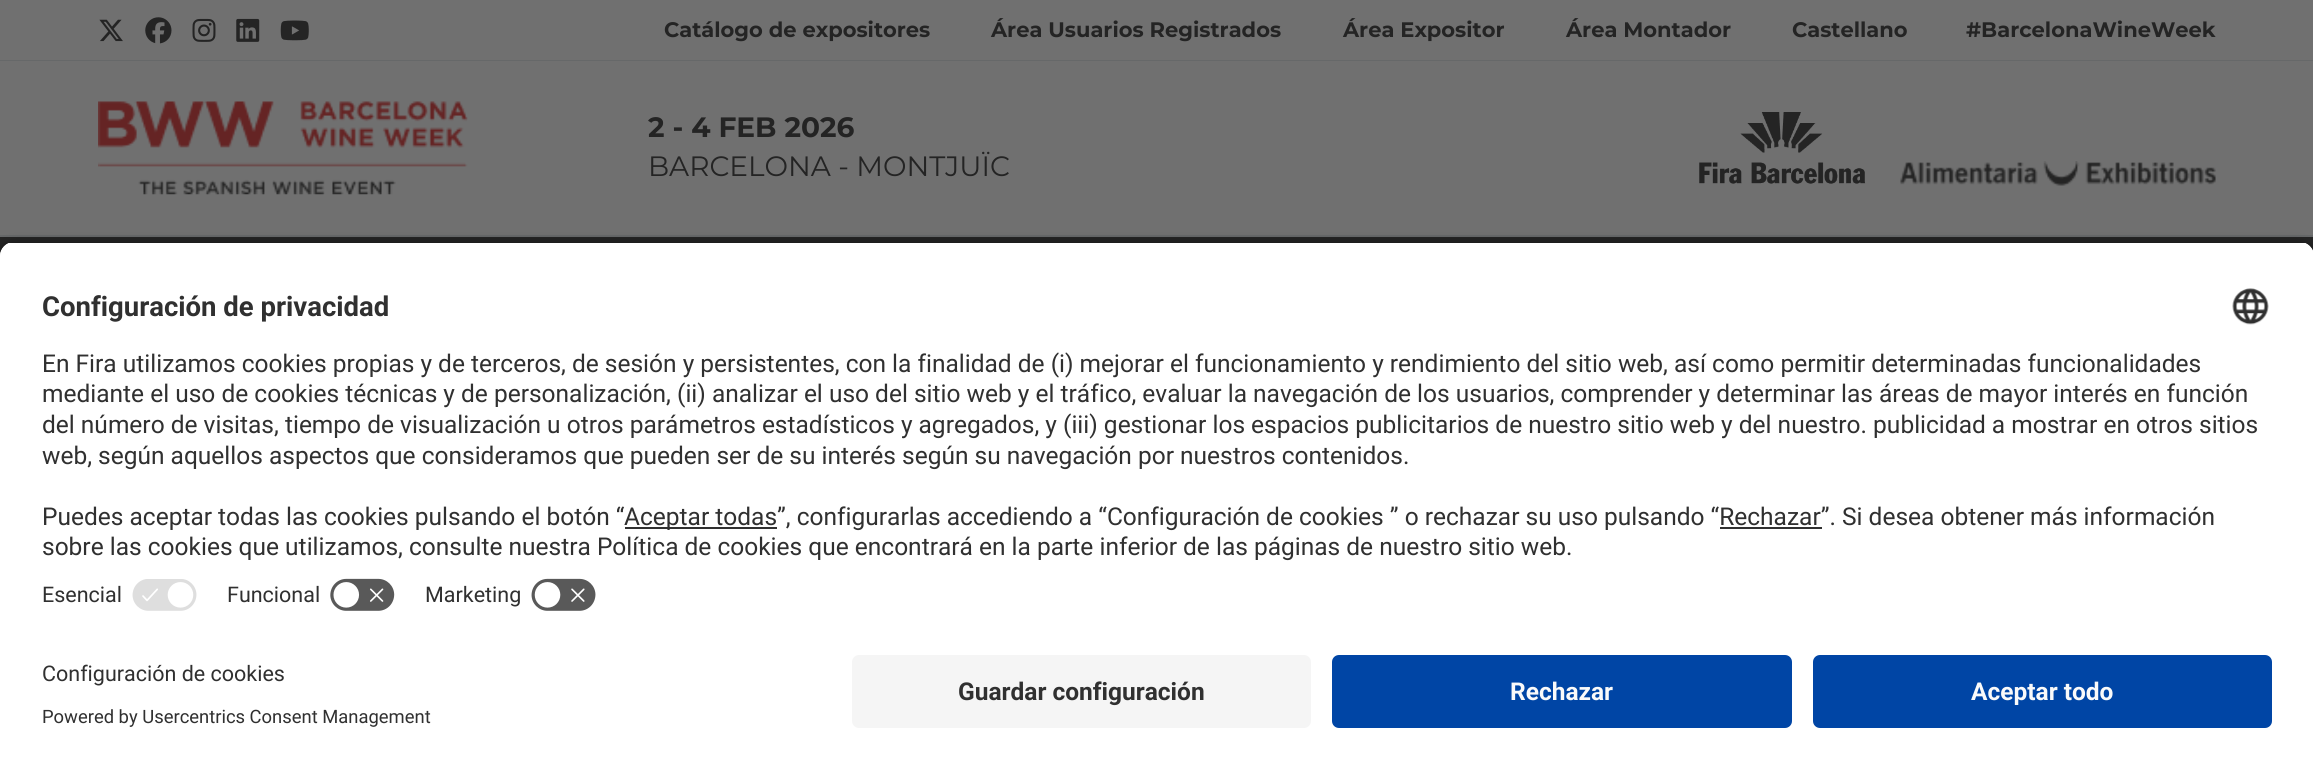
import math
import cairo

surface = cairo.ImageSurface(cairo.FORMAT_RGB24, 2313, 770)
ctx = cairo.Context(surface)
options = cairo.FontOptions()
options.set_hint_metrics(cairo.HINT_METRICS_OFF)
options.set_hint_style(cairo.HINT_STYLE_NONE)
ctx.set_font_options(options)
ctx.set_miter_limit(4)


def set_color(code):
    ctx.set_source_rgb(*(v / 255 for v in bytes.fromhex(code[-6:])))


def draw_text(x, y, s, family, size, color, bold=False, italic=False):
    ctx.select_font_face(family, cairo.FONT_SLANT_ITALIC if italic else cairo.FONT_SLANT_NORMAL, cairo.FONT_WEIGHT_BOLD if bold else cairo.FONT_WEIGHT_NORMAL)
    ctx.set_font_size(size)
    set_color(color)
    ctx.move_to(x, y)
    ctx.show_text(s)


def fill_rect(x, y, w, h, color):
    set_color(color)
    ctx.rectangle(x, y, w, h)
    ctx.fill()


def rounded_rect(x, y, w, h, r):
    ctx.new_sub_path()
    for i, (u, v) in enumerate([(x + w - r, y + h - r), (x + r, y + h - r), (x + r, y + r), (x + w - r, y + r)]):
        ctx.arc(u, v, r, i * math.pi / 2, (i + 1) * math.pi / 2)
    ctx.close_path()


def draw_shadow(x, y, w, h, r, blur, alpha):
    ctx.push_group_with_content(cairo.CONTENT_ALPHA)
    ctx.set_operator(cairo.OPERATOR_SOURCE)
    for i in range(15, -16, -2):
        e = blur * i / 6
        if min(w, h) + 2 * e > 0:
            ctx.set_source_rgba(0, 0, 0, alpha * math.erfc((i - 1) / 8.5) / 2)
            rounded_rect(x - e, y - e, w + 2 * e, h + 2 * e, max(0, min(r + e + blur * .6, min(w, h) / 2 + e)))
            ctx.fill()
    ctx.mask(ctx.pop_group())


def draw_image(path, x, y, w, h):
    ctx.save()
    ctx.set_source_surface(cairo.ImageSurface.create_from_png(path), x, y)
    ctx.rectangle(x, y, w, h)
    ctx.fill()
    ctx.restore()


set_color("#707070")
ctx.paint()
draw_image("assets/img1.png", 99, 19, 24, 23)
draw_image("assets/img2.png", 145, 17, 27, 27)
draw_image("assets/img3.png", 192, 18, 24, 24)
draw_image("assets/img4.png", 236, 18, 24, 24)
draw_image("assets/img5.png", 280, 20, 29, 21)
draw_text(664, 37, "Catálogo de expositores", "Montserrat", 21, "#242424", bold=True)
draw_text(991, 37, "Área Usuarios Registrados", "Montserrat", 21, "#242424", bold=True)
draw_text(1343, 37, "Área Expositor", "Montserrat", 21, "#242424", bold=True)
draw_text(1566, 37, "Área Montador", "Montserrat", 21, "#242424", bold=True)
draw_text(1792, 37, "Castellano", "Montserrat", 21, "#242424", bold=True)
draw_text(1966, 37, "#BarcelonaWineWeek", "Montserrat", 21, "#242424", bold=True)
fill_rect(0, 60, 2313, 1, "#666869")
fill_rect(0, 235, 2313, 2, "#666869")
draw_image("assets/img6.png", 98, 101, 370, 94)
draw_text(648, 137, "2 - 4 FEB 2026", "Montserrat", 28, "#242424", bold=True)
draw_text(648, 176, "BARCELONA - MONTJUÏC", "Montserrat", 28, "#242424")
draw_image("assets/img7.png", 1699, 112, 167, 72)
draw_image("assets/img8.png", 1900, 161, 316, 25)
fill_rect(0, 237, 2313, 19, "#242424")
set_color("#000000")
draw_shadow(0, 247, 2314, 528, 14, 6, 0.8)
ctx.save()
ctx.new_path()
ctx.move_to(14, 242)
ctx.line_to(2300, 242)
ctx.curve_to(2307.5, 242, 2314, 248.5, 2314, 256)
ctx.line_to(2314, 641)
ctx.line_to(0, 641)
ctx.line_to(0, 256)
ctx.curve_to(0, 248.5, 6.5, 242, 14, 242)
ctx.close_path()
ctx.clip()
fill_rect(0, 243, 2313, 398, "#ffffff")
fill_rect(0, 243, 2313, 328, "#ffffff")
ctx.restore()
draw_text(42, 316, "Configuración de privacidad", "Roboto", 27.5, "#303030", bold=True)
draw_image("assets/img9.png", 2232, 288, 37, 37)
draw_text(42, 372, "En Fira utilizamos cookies propias y de terceros, de sesión y persistentes, con la finalidad de (i) mejorar el funcionamiento y rendimiento del sitio web, así como permitir determinadas funcionalidades", "Roboto", 24.5, "#303030")
draw_text(42, 402, "mediante el uso de cookies técnicas y de personalización, (ii) analizar el uso del sitio web y el tráfico, evaluar la navegación de los usuarios, comprender y determinar las áreas de mayor interés en función", "Roboto", 24.5, "#303030")
draw_text(42, 433, "del número de visitas, tiempo de visualización u otros parámetros estadísticos y agregados, y (iii) gestionar los espacios publicitarios de nuestro sitio web y del nuestro. publicidad a mostrar en otros sitios", "Roboto", 24.5, "#303030")
draw_text(42, 464, "web, según aquellos aspectos que consideramos que pueden ser de su interés según su navegación por nuestros contenidos.", "Roboto", 24.5, "#303030")
draw_text(42, 525, "Puedes aceptar todas las cookies pulsando el botón “", "Roboto", 24.5, "#303030")
fill_rect(625, 527, 152, 2, "#303030")
draw_text(624, 525, "Aceptar todas”, configurarlas accediendo a “Configuración de cookies ” o rechazar su uso pulsando “Rechazar”. Si desea obtener más información", "Roboto", 24.5, "#303030")
fill_rect(1720, 527, 102, 2, "#303030")
draw_text(42, 555, "sobre las cookies que utilizamos, consulte nuestra Política de cookies que encontrará en la parte inferior de las páginas de nuestro sitio web.", "Roboto", 24.5, "#303030")
draw_text(42, 602, "Esencial", "Roboto", 21.5, "#303030")
draw_image("assets/img10.png", 132, 579, 65, 32)
draw_text(227, 602, "Funcional", "Roboto", 21.5, "#303030")
draw_image("assets/img11.png", 330, 578, 65, 33)
draw_text(425, 602, "Marketing", "Roboto", 21.5, "#303030")
draw_image("assets/img12.png", 531, 578, 65, 33)
fill_rect(0, 641, 2313, 129, "#ffffff")
draw_text(42, 681, "Configuración de cookies", "Roboto", 21.5, "#303030")
draw_text(42, 723, "Powered by Usercentrics Consent Management", "Roboto", 18.4, "#303030")
set_color("#f5f5f5")
rounded_rect(852, 655, 459, 73, 7)
ctx.fill()
draw_text(958, 700, "Guardar configuración", "Roboto", 24.5, "#303030", bold=True)
set_color("#0045a5")
rounded_rect(1332, 655, 460, 73, 7)
ctx.fill()
draw_text(1510, 700, "Rechazar", "Roboto", 24.5, "#fafafa", bold=True)
set_color("#0045a5")
rounded_rect(1813, 655, 459, 73, 7)
ctx.fill()
draw_text(1971, 700, "Aceptar todo", "Roboto", 24.5, "#fafafa", bold=True)
surface.write_to_png("output.png")
